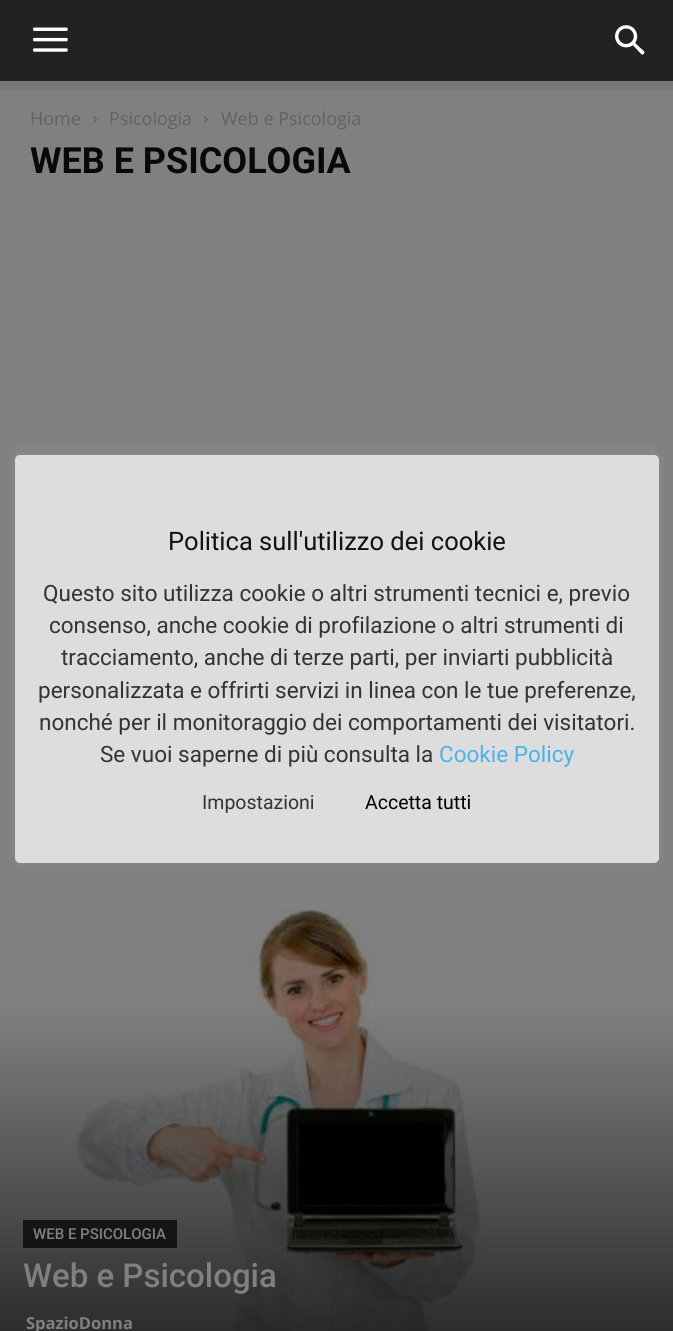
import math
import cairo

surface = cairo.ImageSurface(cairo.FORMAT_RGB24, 673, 1331)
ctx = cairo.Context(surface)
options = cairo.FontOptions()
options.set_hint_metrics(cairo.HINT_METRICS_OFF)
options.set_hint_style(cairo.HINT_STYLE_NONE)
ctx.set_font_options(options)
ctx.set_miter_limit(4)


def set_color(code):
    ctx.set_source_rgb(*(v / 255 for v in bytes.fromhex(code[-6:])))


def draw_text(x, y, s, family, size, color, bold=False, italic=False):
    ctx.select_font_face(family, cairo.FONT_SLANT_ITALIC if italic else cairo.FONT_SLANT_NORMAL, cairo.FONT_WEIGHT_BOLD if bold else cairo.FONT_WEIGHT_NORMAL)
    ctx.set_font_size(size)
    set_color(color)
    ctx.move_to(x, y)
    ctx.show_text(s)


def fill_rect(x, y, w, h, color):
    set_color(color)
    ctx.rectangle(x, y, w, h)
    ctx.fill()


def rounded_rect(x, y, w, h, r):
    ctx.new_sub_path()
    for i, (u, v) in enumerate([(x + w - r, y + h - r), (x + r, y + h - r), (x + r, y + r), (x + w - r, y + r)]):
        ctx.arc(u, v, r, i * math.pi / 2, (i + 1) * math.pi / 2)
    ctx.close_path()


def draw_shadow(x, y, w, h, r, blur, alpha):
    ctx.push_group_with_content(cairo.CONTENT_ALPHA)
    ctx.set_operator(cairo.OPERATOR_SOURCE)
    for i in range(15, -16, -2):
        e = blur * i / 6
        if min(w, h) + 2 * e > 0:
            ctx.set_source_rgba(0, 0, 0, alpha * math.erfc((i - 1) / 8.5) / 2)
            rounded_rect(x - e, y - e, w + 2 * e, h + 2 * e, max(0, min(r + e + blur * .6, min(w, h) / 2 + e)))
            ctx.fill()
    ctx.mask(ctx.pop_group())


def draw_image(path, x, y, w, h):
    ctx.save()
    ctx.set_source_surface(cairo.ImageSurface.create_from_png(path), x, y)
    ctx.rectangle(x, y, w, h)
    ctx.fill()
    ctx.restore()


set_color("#808080")
ctx.paint()
fill_rect(0, 0, 673, 81, "#222222")
draw_image("assets/img1.png", 33, 27, 35, 25)
draw_image("assets/img2.png", 615, 25, 30, 30)
draw_image("assets/img3.png", 0, 81, 673, 9)
draw_text(30, 125, "Home", "Open Sans", 18, "#626262")
draw_image("assets/img4.png", 93, 116, 4, 7)
draw_text(109, 125, "Psicologia", "Open Sans", 18, "#626262")
draw_image("assets/img4.png", 204, 116, 4, 7)
draw_text(221, 125, "Web e Psicologia", "Open Sans", 18, "#626262")
draw_text(30, 173, "WEB E PSICOLOGIA", "Roboto", 36, "#090909", bold=True)
draw_image("assets/img5.png", 0, 909, 673, 422)
ctx.set_source_rgba(0, 0, 0, 0.7)
ctx.rectangle(23, 1220, 154, 28)
ctx.fill()
draw_text(33, 1239, "WEB E PSICOLOGIA", "Roboto Medium", 15, "#808080")
draw_text(23, 1287, "Web e Psicologia", "Roboto Medium", 33, "#808080")
draw_text(26, 1329, "SpazioDonna", "Open Sans", 16.5, "#808080", bold=True)
set_color("#acabab")
draw_shadow(15, 453, 644, 408, 5, 7.5, 0.3)
set_color("#dddddd")
rounded_rect(15, 455, 644, 408, 5)
ctx.fill()
draw_text(168, 550, "Politica sull'utilizzo dei cookie", "Roboto", 25.5, "#111111")
draw_text(43, 601, "Questo sito utilizza cookie o altri strumenti tecnici e, previo", "Roboto", 22.5, "#333333")
draw_text(49, 633, "consenso, anche cookie di profilazione o altri strumenti di", "Roboto", 22.5, "#333333")
draw_text(61, 665, "tracciamento, anche di terze parti, per inviarti pubblicità", "Roboto", 22.5, "#333333")
draw_text(38, 698, "personalizzata e offrirti servizi in linea con le tue preferenze,", "Roboto", 22.5, "#333333")
draw_text(39, 730, "nonché per il monitoraggio dei comportamenti dei visitatori.", "Roboto", 22.5, "#333333")
draw_text(100, 762, "Se vuoi saperne di più consulta la", "Roboto", 22.5, "#333333")
draw_text(439, 762, "Cookie Policy", "Roboto", 22.5, "#4db2ec")
draw_text(202, 809, "Impostazioni", "Roboto", 19.5, "#333333")
draw_text(365, 809, "Accetta tutti", "Roboto", 19.5, "#000000")
surface.write_to_png("output.png")
